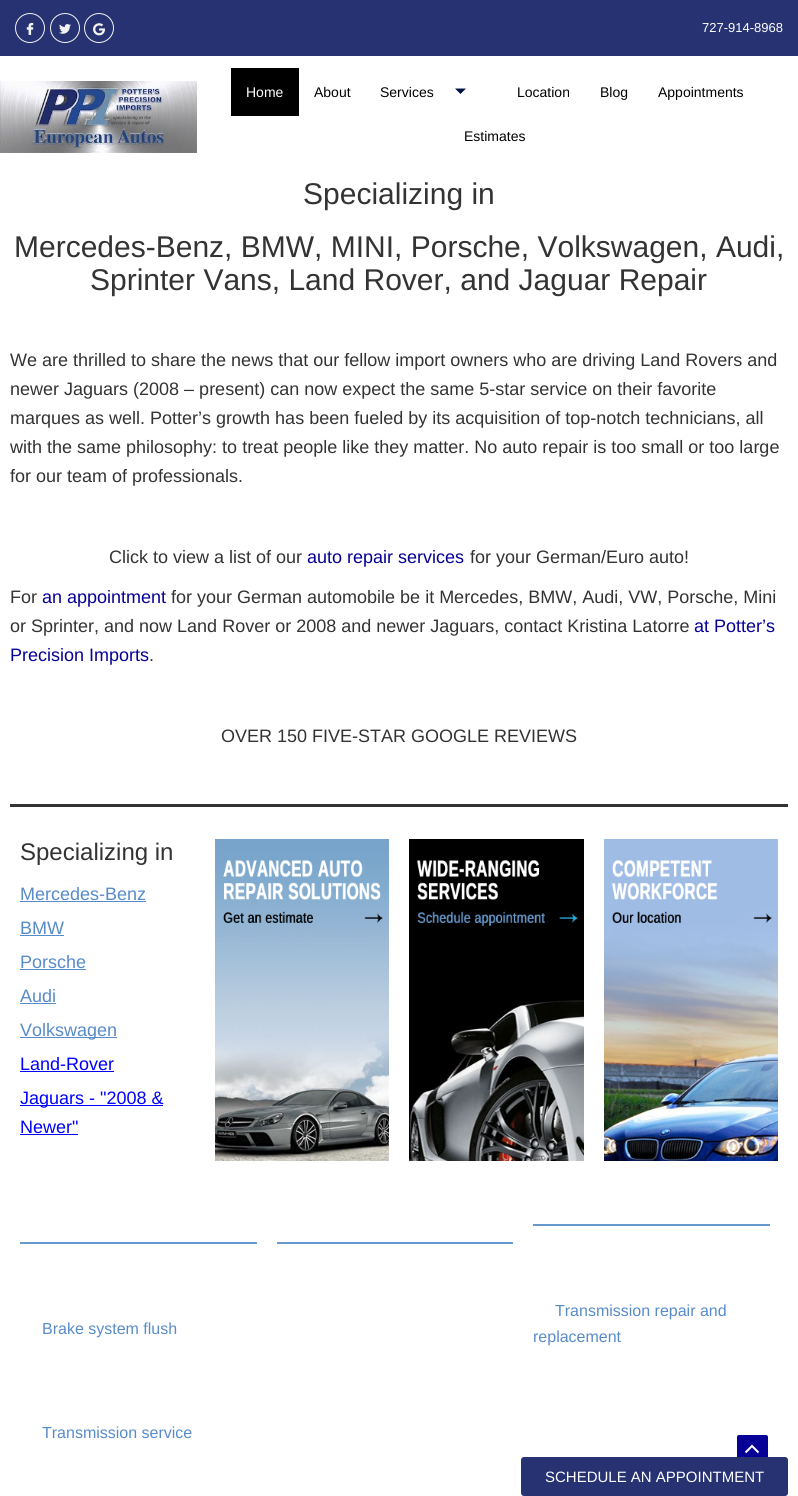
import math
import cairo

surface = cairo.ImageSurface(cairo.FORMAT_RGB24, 798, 1496)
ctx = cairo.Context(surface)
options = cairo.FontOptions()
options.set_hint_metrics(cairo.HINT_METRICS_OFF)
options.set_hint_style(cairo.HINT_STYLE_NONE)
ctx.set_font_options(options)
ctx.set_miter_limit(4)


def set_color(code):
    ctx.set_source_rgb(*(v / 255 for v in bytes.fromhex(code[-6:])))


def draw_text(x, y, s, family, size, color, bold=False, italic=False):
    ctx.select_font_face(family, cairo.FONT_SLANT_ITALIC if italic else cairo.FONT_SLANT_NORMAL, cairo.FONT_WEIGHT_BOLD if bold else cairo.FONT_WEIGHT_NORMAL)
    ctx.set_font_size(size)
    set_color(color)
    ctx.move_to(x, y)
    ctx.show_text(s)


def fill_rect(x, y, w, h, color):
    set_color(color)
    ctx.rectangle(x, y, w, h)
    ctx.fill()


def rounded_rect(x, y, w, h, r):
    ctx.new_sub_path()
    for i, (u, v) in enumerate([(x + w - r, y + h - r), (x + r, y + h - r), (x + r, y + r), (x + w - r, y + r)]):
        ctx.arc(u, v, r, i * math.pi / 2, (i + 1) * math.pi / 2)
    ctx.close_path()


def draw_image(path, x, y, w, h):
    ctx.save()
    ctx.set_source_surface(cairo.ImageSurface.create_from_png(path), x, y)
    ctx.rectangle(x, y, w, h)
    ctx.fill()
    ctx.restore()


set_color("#ffffff")
ctx.paint()
fill_rect(0, 0, 798, 56, "#273272")
ctx.arc(30, 28, 14.5, 0, 2 * math.pi)
set_color("#f2f2f2")
ctx.set_line_width(1)
ctx.stroke()
draw_image("assets/img1.png", 26, 22, 8, 13)
ctx.arc(65, 28, 14.5, 0, 2 * math.pi)
ctx.stroke()
draw_image("assets/img2.png", 59, 24, 12, 10)
ctx.arc(99, 28, 14.5, 0, 2 * math.pi)
ctx.stroke()
draw_image("assets/img3.png", 93, 23, 12, 13)
draw_text(702, 32, "727-914-8968", "Liberation Sans", 13, "#ffffff")
draw_image("assets/img4.png", 0, 81, 197, 72)
fill_rect(231, 68, 68, 48, "#000000")
draw_text(246, 97, "Home", "Liberation Sans", 14, "#ffffff")
draw_text(314, 97, "About", "Liberation Sans", 14, "#000000")
draw_text(380, 97, "Services", "Liberation Sans", 14, "#000000")
set_color("#021343")
ctx.new_path()
ctx.move_to(455, 88.5)
ctx.line_to(466, 88.5)
ctx.line_to(460.5, 94)
ctx.close_path()
ctx.fill()
draw_text(517, 97, "Location", "Liberation Sans", 14, "#000000")
draw_text(600, 97, "Blog", "Liberation Sans", 14, "#000000")
draw_text(658, 97, "Appointments", "Liberation Sans", 14, "#000000")
draw_text(464, 141, "Estimates", "Liberation Sans", 14, "#000000")
draw_text(303, 204, "Specializing in", "Liberation Sans", 30, "#333333")
draw_text(14, 257, "Mercedes-Benz, BMW, MINI, Porsche, Volkswagen, Audi,", "Liberation Sans", 30, "#333333")
draw_text(90, 290, "Sprinter Vans, Land Rover, and Jaguar Repair", "Liberation Sans", 30, "#333333")
draw_text(10, 366, "We are thrilled to share the news that our fellow import owners who are driving Land Rovers and", "Liberation Sans", 18, "#333333")
draw_text(10, 395, "newer Jaguars (2008 – present) can now expect the same 5-star service on their favorite", "Liberation Sans", 18, "#333333")
draw_text(10, 424, "marques as well. Potter’s growth has been fueled by its acquisition of top-notch technicians, all", "Liberation Sans", 18, "#333333")
draw_text(10, 453, "with the same philosophy: to treat people like they matter. No auto repair is too small or too large", "Liberation Sans", 18, "#333333")
draw_text(10, 482, "for our team of professionals.", "Liberation Sans", 18, "#333333")
draw_text(109, 563, "Click to view a list of our", "Liberation Sans", 18, "#333333")
draw_text(307, 563, "auto repair services", "Liberation Sans", 18, "#060097")
draw_text(470, 563, "for your German/Euro auto!", "Liberation Sans", 18, "#333333")
draw_text(10, 603, "For", "Liberation Sans", 18, "#333333")
draw_text(42, 603, "an appointment", "Liberation Sans", 18, "#060097")
draw_text(171, 603, "for your German automobile be it Mercedes, BMW, Audi, VW, Porsche, Mini", "Liberation Sans", 18, "#333333")
draw_text(10, 632, "or Sprinter, and now Land Rover or 2008 and newer Jaguars, contact Kristina Latorre", "Liberation Sans", 18, "#333333")
draw_text(694, 632, "at Potter’s", "Liberation Sans", 18, "#060097")
draw_text(10, 661, "Precision Imports", "Liberation Sans", 18, "#060097")
draw_text(149, 661, ".", "Liberation Sans", 18, "#333333")
draw_text(221, 742, "OVER 150 FIVE-STAR GOOGLE REVIEWS", "Liberation Sans", 18, "#333333")
fill_rect(10, 804, 778, 3, "#333333")
draw_text(20, 860, "Specializing in", "Liberation Sans", 24, "#333333")
draw_text(20, 900, "Mercedes-Benz", "Liberation Sans", 18, "#588bca")
fill_rect(20, 901, 126, 1, "#588bca")
draw_text(20, 934, "BMW", "Liberation Sans", 18, "#588bca")
fill_rect(20, 935, 44, 1, "#588bca")
draw_text(20, 968, "Porsche", "Liberation Sans", 18, "#588bca")
fill_rect(20, 969, 66, 1, "#588bca")
draw_text(20, 1002, "Audi", "Liberation Sans", 18, "#588bca")
fill_rect(20, 1003, 36, 1, "#588bca")
fill_rect(20, 1037, 97, 1, "#588bca")
draw_text(20, 1036, "Volkswagen", "Liberation Sans", 18, "#588bca")
draw_text(20, 1070, "Land-Rover", "Liberation Sans", 18, "#0000ff")
fill_rect(20, 1071, 94, 1, "#0000ff")
fill_rect(20, 1105, 143, 1, "#0000ff")
draw_text(20, 1104, "Jaguars - \"2008 &", "Liberation Sans", 18, "#0000ff")
draw_text(20, 1133, "Newer\"", "Liberation Sans", 18, "#0000ff")
fill_rect(20, 1134, 58, 1, "#0000ff")
draw_image("assets/img5.png", 215, 839, 174, 322)
draw_image("assets/img6.png", 409, 839, 175, 322)
draw_image("assets/img7.png", 604, 839, 174, 322)
fill_rect(277, 1242, 236, 2, "#6699cc")
fill_rect(20, 1242, 237, 2, "#6699cc")
draw_text(42, 1334, "Brake system flush", "Liberation Sans", 16, "#588bca")
draw_text(42, 1438, "Transmission service", "Liberation Sans", 16, "#588bca")
fill_rect(533, 1224, 237, 2, "#6699cc")
draw_text(555, 1316, "Transmission repair and", "Liberation Sans", 16, "#588bca")
draw_text(533, 1342, "replacement", "Liberation Sans", 16, "#588bca")
set_color("#060097")
rounded_rect(737, 1435, 31, 31, 2)
ctx.fill()
set_color("#273272")
rounded_rect(521, 1457, 267, 39, 3)
ctx.fill()
draw_text(545, 1482, "SCHEDULE AN APPOINTMENT", "Liberation Sans", 15, "#ffffff")
draw_image("assets/img8.png", 745, 1444, 15, 10)
surface.write_to_png("output.png")
